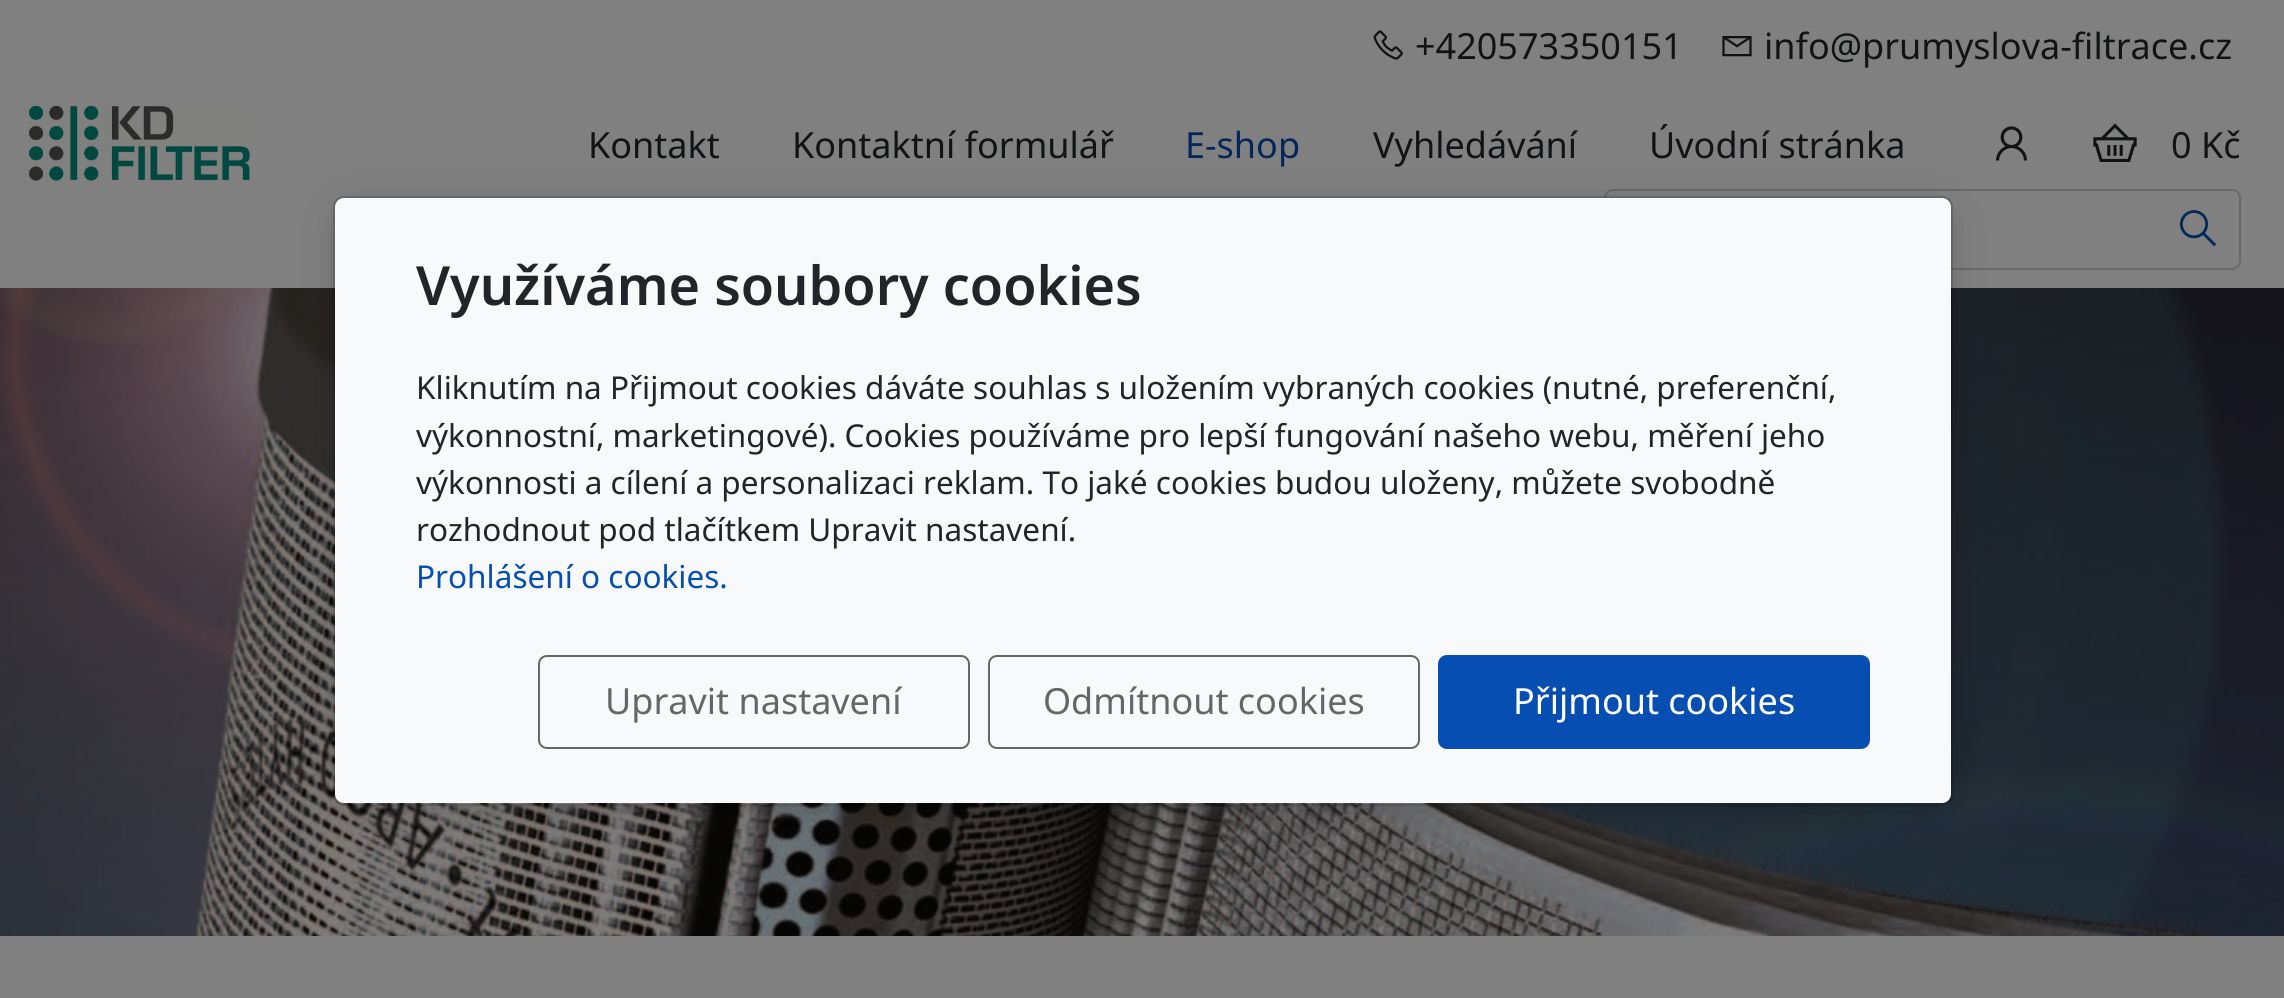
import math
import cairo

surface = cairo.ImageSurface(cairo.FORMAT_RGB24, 2284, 998)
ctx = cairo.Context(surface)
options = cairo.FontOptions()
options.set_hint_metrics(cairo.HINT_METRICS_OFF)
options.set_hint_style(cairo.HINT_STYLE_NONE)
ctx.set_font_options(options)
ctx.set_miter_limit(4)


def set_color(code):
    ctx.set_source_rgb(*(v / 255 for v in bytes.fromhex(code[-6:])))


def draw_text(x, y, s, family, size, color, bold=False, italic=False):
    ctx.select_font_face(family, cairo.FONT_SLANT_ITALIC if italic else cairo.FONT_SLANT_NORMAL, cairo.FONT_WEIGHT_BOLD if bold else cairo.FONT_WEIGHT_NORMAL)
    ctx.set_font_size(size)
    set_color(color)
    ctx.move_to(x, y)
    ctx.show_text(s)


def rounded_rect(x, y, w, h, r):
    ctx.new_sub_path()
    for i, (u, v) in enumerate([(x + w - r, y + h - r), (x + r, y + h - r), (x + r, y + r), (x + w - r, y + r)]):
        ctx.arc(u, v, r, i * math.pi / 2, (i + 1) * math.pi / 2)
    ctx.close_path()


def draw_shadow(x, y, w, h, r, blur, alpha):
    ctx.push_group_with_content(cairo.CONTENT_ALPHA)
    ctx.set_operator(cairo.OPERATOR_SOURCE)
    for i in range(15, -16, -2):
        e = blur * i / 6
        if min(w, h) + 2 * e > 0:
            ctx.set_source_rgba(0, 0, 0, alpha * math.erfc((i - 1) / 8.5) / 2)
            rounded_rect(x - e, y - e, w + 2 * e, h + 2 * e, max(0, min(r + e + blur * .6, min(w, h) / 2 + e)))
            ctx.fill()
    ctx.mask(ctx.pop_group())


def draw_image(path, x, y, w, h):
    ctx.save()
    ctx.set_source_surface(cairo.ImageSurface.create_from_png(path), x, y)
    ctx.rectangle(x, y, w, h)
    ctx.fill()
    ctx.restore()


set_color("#808080")
ctx.paint()
draw_image("assets/img1.png", 1373, 30, 30, 30)
draw_text(1415, 59, "+420573350151", "Noto Sans", 36, "#111315")
draw_image("assets/img2.png", 1722, 36, 30, 21)
draw_text(1764, 59, "info@prumyslova-filtrace.cz", "Noto Sans", 36, "#111315")
draw_image("assets/img3.png", 28, 105, 222, 76)
draw_text(588, 158, "Kontakt", "Noto Sans", 36, "#111315")
draw_text(792, 158, "Kontaktní formulář", "Noto Sans", 36, "#111315")
draw_text(1185, 158, "E-shop", "Noto Sans", 36, "#04275a")
draw_text(1373, 158, "Vyhledávání", "Noto Sans", 36, "#111315")
draw_text(1649, 158, "Úvodní stránka", "Noto Sans", 36, "#111315")
draw_image("assets/img4.png", 1996, 126, 31, 35)
draw_image("assets/img5.png", 2093, 123, 44, 39)
draw_text(2171, 158, "0 Kč", "Noto Sans", 36, "#111315")
set_color("#676a6d")
ctx.set_fill_rule(cairo.FILL_RULE_EVEN_ODD)
ctx.new_path()
ctx.move_to(1613, 189)
ctx.line_to(2158, 189)
ctx.line_to(2158, 270)
ctx.line_to(1613, 270)
ctx.curve_to(1608, 270, 1604, 266, 1604, 261)
ctx.line_to(1604, 198)
ctx.curve_to(1604, 193, 1608, 189, 1613, 189)
ctx.close_path()
ctx.move_to(1613, 191)
ctx.line_to(2158, 191)
ctx.line_to(2158, 268)
ctx.line_to(1613, 268)
ctx.curve_to(1610, 268, 1606, 265, 1606, 261)
ctx.line_to(1606, 198)
ctx.curve_to(1606, 194, 1610, 191, 1613, 191)
ctx.close_path()
ctx.fill()
ctx.new_path()
ctx.move_to(2158, 189)
ctx.line_to(2232, 189)
ctx.curve_to(2237, 189, 2241, 193, 2241, 198)
ctx.line_to(2241, 261)
ctx.curve_to(2241, 266, 2237, 270, 2232, 270)
ctx.line_to(2158, 270)
ctx.close_path()
ctx.move_to(2158, 191)
ctx.line_to(2232, 191)
ctx.curve_to(2236, 191, 2239, 194, 2239, 198)
ctx.line_to(2239, 261)
ctx.curve_to(2239, 265, 2236, 268, 2232, 268)
ctx.line_to(2158, 268)
ctx.close_path()
ctx.fill()
draw_image("assets/img6.png", 2180, 210, 36, 37)
draw_image("assets/img7.png", 0, 288, 2284, 648)
ctx.save()
ctx.new_path()
ctx.move_to(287, 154)
ctx.line_to(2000, 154)
ctx.line_to(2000, 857)
ctx.line_to(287, 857)
ctx.close_path()
ctx.move_to(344, 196)
ctx.line_to(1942, 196)
ctx.curve_to(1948, 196, 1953, 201, 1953, 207)
ctx.line_to(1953, 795)
ctx.curve_to(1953, 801, 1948, 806, 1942, 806)
ctx.line_to(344, 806)
ctx.curve_to(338, 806, 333, 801, 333, 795)
ctx.line_to(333, 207)
ctx.curve_to(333, 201, 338, 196, 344, 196)
ctx.close_path()
ctx.clip()
set_color("#000000")
draw_shadow(356, 223, 1575, 565, 0, 22.5, 0.5)
ctx.restore()
set_color("#f8f9fa")
rounded_rect(335, 198, 1616, 605, 9)
ctx.fill()
rounded_rect(334, 197, 1618, 608, 10)
ctx.set_source_rgba(0, 0, 0, 0.2)
ctx.stroke()
draw_text(416, 305, "Využíváme soubory cookies", "Noto Sans SemiBold", 54, "#212529")
draw_text(416, 399, "Kliknutím na Přijmout cookies dáváte souhlas s uložením vybraných cookies (nutné, preferenční,", "Noto Sans", 31.5, "#212529")
draw_text(416, 447, "výkonnostní, marketingové). Cookies používáme pro lepší fungování našeho webu, měření jeho", "Noto Sans", 31.5, "#212529")
draw_text(416, 494, "výkonnosti a cílení a personalizaci reklam. To jaké cookies budou uloženy, můžete svobodně", "Noto Sans", 31.5, "#212529")
draw_text(416, 541, "rozhodnout pod tlačítkem Upravit nastavení.", "Noto Sans", 31.5, "#212529")
draw_text(416, 588, "Prohlášení o cookies.", "Noto Sans", 31.5, "#074eb3")
rounded_rect(539, 656, 430, 92, 8)
set_color("#646669")
ctx.stroke()
draw_text(605, 714, "Upravit nastavení", "Noto Sans", 36, "#646669")
rounded_rect(989, 656, 430, 92, 8)
ctx.stroke()
draw_text(1043, 714, "Odmítnout cookies", "Noto Sans", 36, "#646669")
set_color("#074eb3")
rounded_rect(1439, 656, 430, 92, 8)
ctx.fill_preserve()
ctx.stroke()
draw_text(1513, 714, "Přijmout cookies", "Noto Sans", 36, "#ffffff")
surface.write_to_png("output.png")
